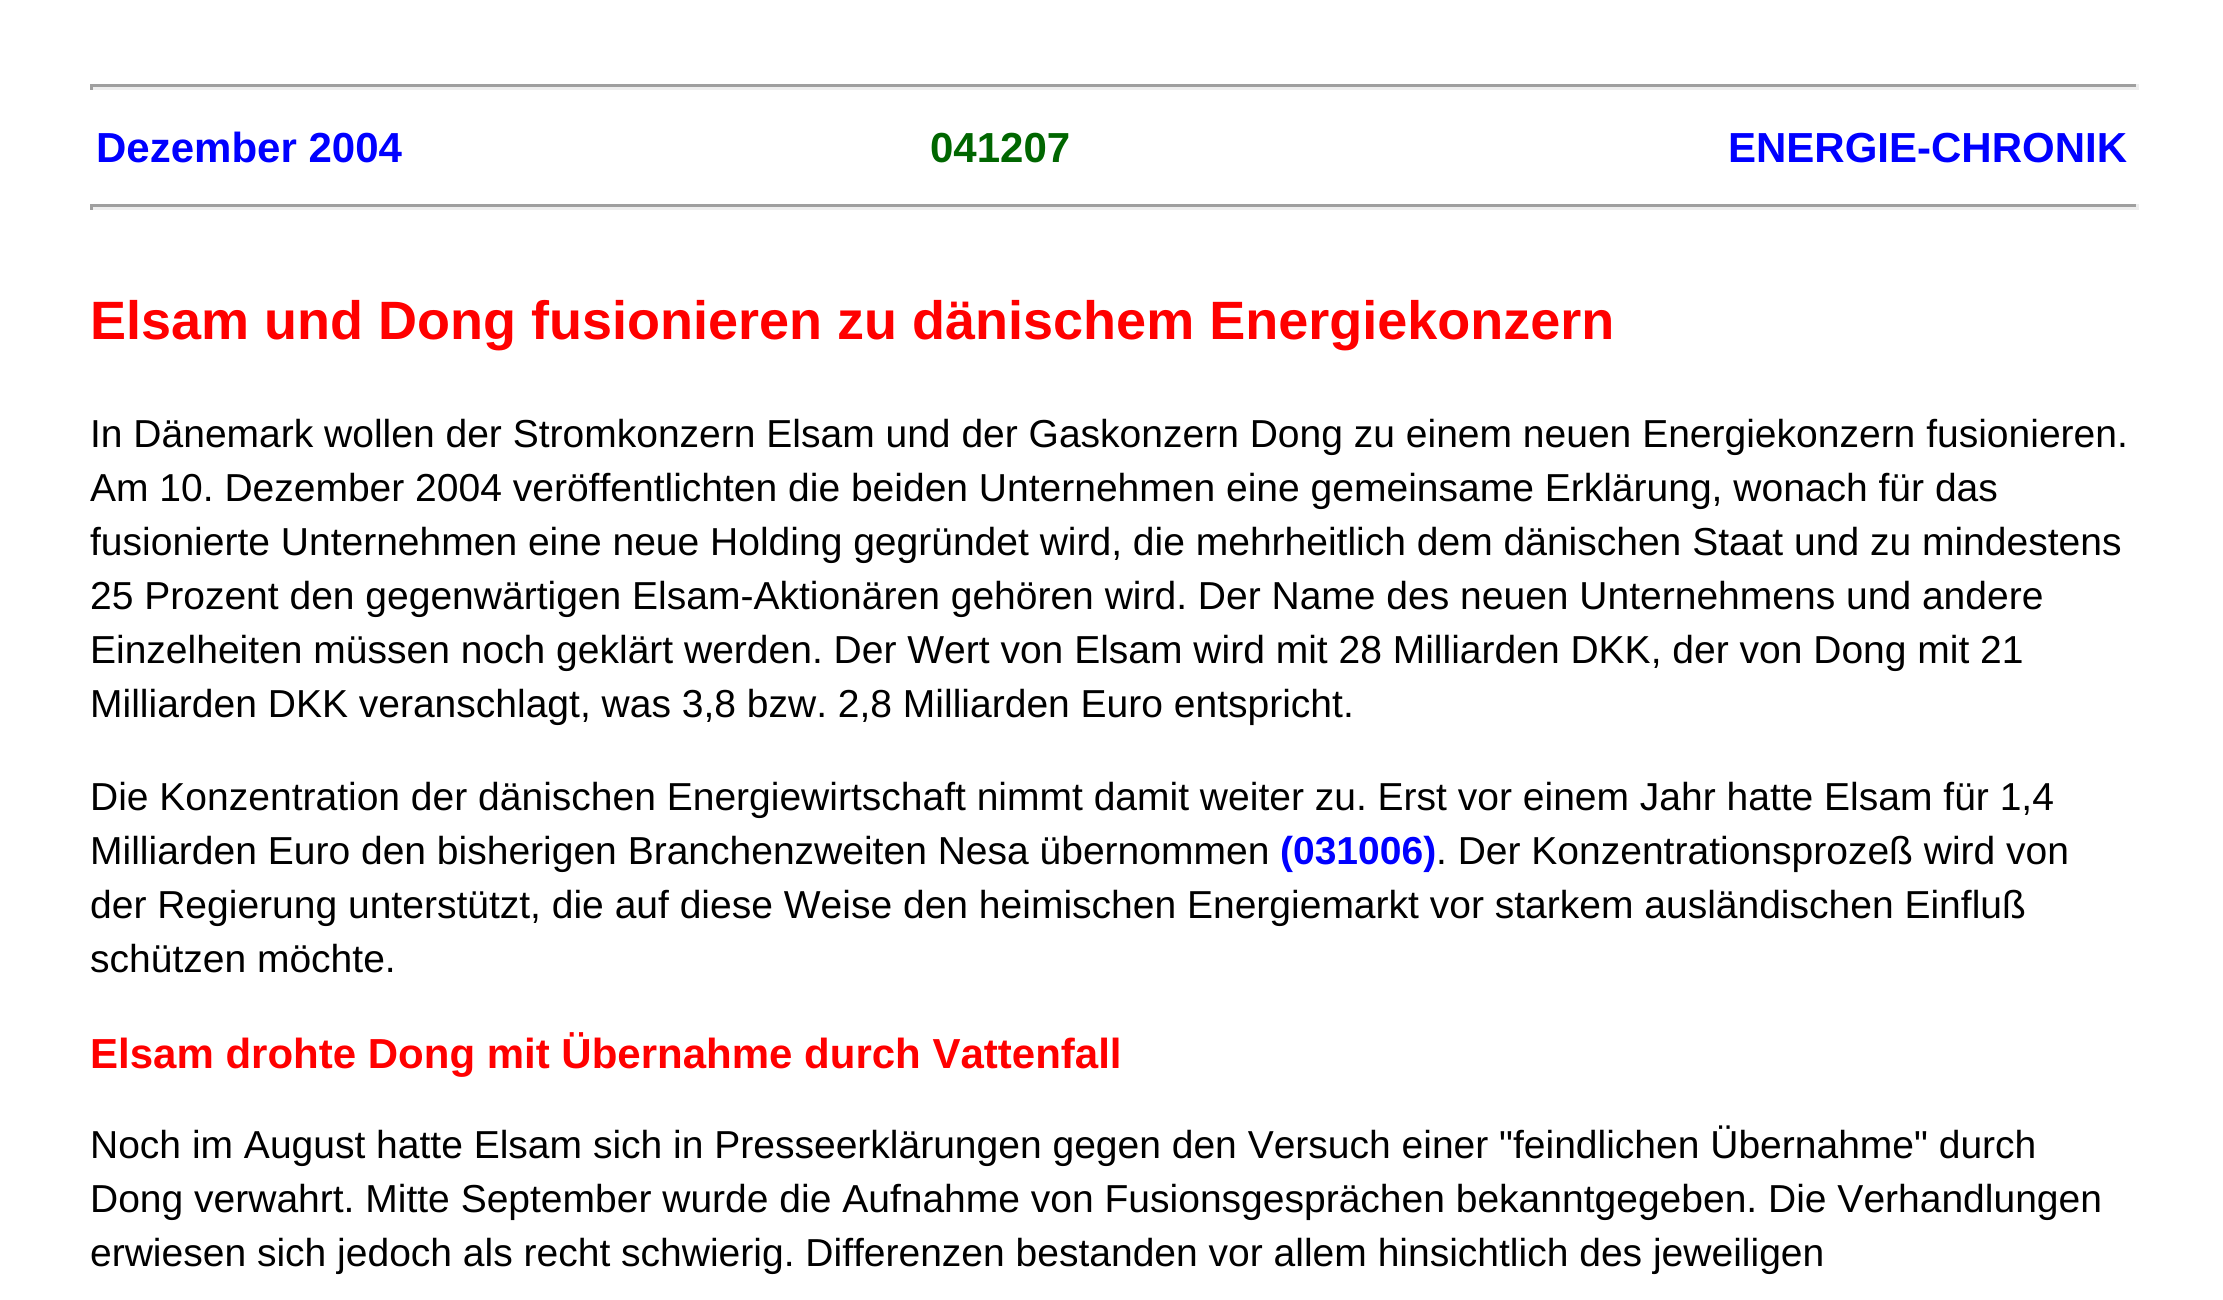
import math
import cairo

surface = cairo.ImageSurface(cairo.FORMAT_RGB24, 2223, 1300)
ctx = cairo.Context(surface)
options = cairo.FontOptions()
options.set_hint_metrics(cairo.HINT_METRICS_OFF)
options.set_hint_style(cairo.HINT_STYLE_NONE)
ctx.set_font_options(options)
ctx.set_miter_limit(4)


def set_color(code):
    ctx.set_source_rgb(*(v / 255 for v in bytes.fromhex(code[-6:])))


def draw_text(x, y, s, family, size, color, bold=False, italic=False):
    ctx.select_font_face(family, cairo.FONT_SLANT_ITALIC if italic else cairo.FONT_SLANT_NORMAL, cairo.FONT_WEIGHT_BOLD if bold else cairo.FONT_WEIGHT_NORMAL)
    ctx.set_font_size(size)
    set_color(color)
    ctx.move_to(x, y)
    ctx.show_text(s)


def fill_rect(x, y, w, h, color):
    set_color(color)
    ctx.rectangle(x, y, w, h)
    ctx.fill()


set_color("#ffffff")
ctx.paint()
fill_rect(90, 84, 2049, 3, "#9f9f9f")
fill_rect(2136, 84, 3, 6, "#eeeeee")
fill_rect(90, 87, 2049, 3, "#eeeeee")
fill_rect(90, 84, 3, 6, "#9f9f9f")
draw_text(96, 162, "Dezember 2004", "Liberation Sans", 42, "#0000ff", bold=True)
draw_text(930, 162, "041207", "Liberation Sans", 42, "#006600", bold=True)
draw_text(1728, 162, "ENERGIE-CHRONIK", "Liberation Sans", 42, "#0000ff", bold=True)
fill_rect(90, 204, 2049, 3, "#9f9f9f")
fill_rect(2136, 204, 3, 6, "#eeeeee")
fill_rect(90, 207, 2049, 3, "#eeeeee")
fill_rect(90, 204, 3, 6, "#9f9f9f")
draw_text(90, 339, "Elsam und Dong fusionieren zu dänischem Energiekonzern", "Liberation Sans", 54, "#ff0000", bold=True)
draw_text(90, 447, "In Dänemark wollen der Stromkonzern Elsam und der Gaskonzern Dong zu einem neuen Energiekonzern fusionieren.", "Liberation Sans", 39, "#000000")
draw_text(90, 501, "Am 10. Dezember 2004 veröffentlichten die beiden Unternehmen eine gemeinsame Erklärung, wonach für das", "Liberation Sans", 39, "#000000")
draw_text(90, 555, "fusionierte Unternehmen eine neue Holding gegründet wird, die mehrheitlich dem dänischen Staat und zu mindestens", "Liberation Sans", 39, "#000000")
draw_text(90, 609, "25 Prozent den gegenwärtigen Elsam-Aktionären gehören wird. Der Name des neuen Unternehmens und andere", "Liberation Sans", 39, "#000000")
draw_text(90, 663, "Einzelheiten müssen noch geklärt werden. Der Wert von Elsam wird mit 28 Milliarden DKK, der von Dong mit 21", "Liberation Sans", 39, "#000000")
draw_text(90, 717, "Milliarden DKK veranschlagt, was 3,8 bzw. 2,8 Milliarden Euro entspricht.", "Liberation Sans", 39, "#000000")
draw_text(90, 810, "Die Konzentration der dänischen Energiewirtschaft nimmt damit weiter zu. Erst vor einem Jahr hatte Elsam für 1,4", "Liberation Sans", 39, "#000000")
draw_text(90, 864, "Milliarden Euro den bisherigen Branchenzweiten Nesa übernommen", "Liberation Sans", 39, "#000000")
draw_text(1280, 864, "(031006)", "Liberation Sans", 39, "#0000ff", bold=True)
draw_text(1436, 864, ". Der Konzentrationsprozeß wird von", "Liberation Sans", 39, "#000000")
draw_text(90, 918, "der Regierung unterstützt, die auf diese Weise den heimischen Energiemarkt vor starkem ausländischen Einfluß", "Liberation Sans", 39, "#000000")
draw_text(90, 972, "schützen möchte.", "Liberation Sans", 39, "#000000")
draw_text(90, 1068, "Elsam drohte Dong mit Übernahme durch Vattenfall", "Liberation Sans", 42, "#ff0000", bold=True)
draw_text(90, 1158, "Noch im August hatte Elsam sich in Presseerklärungen gegen den Versuch einer \"feindlichen Übernahme\" durch", "Liberation Sans", 39, "#000000")
draw_text(90, 1212, "Dong verwahrt. Mitte September wurde die Aufnahme von Fusionsgesprächen bekanntgegeben. Die Verhandlungen", "Liberation Sans", 39, "#000000")
draw_text(90, 1266, "erwiesen sich jedoch als recht schwierig. Differenzen bestanden vor allem hinsichtlich des jeweiligen", "Liberation Sans", 39, "#000000")
surface.write_to_png("output.png")
